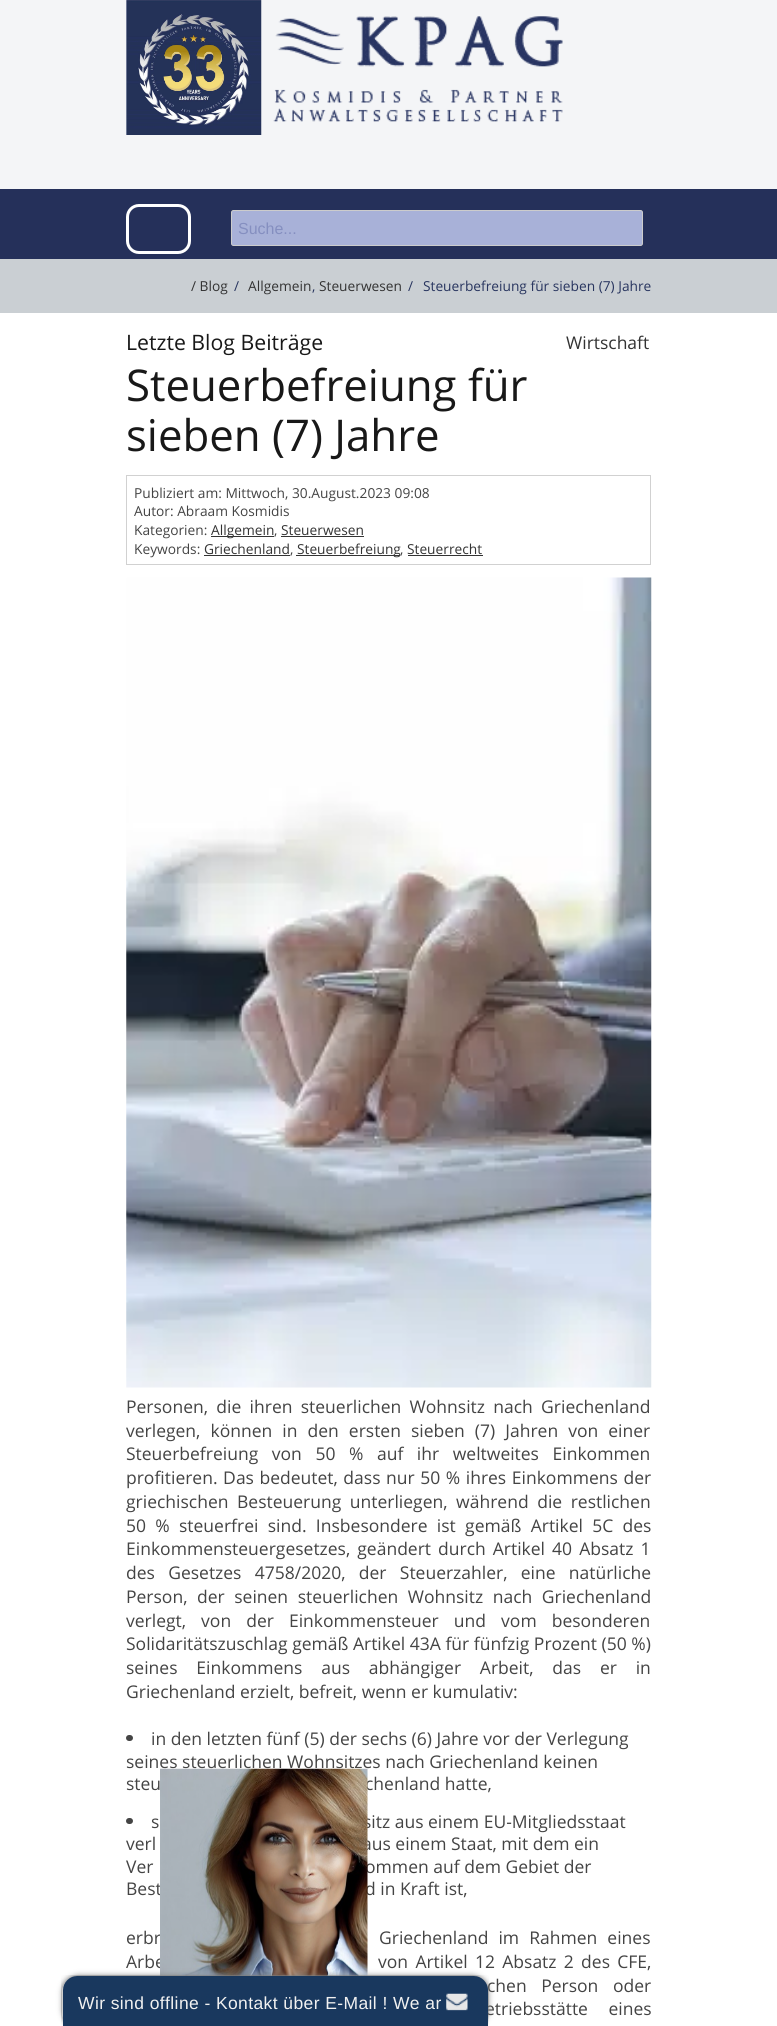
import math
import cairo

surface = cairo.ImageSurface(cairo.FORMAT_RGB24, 777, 2026)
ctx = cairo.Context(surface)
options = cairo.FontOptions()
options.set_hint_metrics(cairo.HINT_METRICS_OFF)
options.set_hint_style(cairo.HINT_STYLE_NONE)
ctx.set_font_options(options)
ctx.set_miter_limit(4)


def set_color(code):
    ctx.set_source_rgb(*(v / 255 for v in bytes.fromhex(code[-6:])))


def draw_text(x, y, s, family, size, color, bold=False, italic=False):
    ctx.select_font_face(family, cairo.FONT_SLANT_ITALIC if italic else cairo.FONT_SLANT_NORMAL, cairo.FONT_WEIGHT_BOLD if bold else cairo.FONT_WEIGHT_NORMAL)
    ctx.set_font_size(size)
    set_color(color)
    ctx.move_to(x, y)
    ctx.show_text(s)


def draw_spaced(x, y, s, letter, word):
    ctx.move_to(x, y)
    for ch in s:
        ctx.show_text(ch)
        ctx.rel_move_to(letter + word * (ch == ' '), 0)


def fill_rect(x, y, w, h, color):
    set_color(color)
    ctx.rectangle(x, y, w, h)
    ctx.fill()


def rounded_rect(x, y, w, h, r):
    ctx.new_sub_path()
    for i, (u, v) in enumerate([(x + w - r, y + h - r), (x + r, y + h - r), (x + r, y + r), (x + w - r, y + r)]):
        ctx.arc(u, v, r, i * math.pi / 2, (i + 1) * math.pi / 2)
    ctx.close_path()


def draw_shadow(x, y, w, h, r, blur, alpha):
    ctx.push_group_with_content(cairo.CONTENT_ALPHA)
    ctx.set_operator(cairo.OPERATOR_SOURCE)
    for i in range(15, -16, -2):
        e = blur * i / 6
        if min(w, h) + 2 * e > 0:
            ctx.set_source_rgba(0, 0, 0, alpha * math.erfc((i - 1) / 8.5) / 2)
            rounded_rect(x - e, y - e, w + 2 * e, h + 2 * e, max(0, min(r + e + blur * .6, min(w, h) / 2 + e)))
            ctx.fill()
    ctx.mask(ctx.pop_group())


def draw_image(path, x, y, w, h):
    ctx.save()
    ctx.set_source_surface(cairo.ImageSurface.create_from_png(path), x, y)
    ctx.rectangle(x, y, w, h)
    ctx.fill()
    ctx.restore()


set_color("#ffffff")
ctx.paint()
fill_rect(0, 0, 777, 189, "#f4f5f7")
draw_image("assets/img1.png", 126, 0, 136, 135)
draw_image("assets/img2.png", 273, 16, 290, 106)
fill_rect(0, 189, 777, 70, "#25305a")
rounded_rect(127.5, 205.5, 62, 47, 11.5)
set_color("#ffffff")
ctx.set_line_width(3)
ctx.stroke()
set_color("#a8b1d8")
rounded_rect(231.5, 210.5, 411, 35, 2)
ctx.fill_preserve()
set_color("#cccccc")
ctx.set_line_width(1)
ctx.stroke()
draw_text(238, 234, "Suche...", "Liberation Sans", 16, "#858fc0")
fill_rect(0, 259, 777, 54, "#cacfd3")
draw_text(191, 291, "/ Blog", "Open Sans", 13.75, "#333333")
draw_text(234, 291, "/", "Open Sans", 13.75, "#28355f")
draw_text(248, 291, "Allgemein", "Open Sans", 13.75, "#333333")
draw_text(312, 291, ",", "Open Sans", 13.75, "#28355f")
draw_text(319, 291, "Steuerwesen", "Open Sans", 13.75, "#333333")
draw_text(408, 291, "/", "Open Sans", 13.75, "#28355f")
draw_text(423, 291, "Steuerbefreiung für sieben (7) Jahre", "Open Sans", 13.75, "#28355f")
draw_text(126, 350, "Letzte Blog Beiträge", "Open Sans", 21.25, "#181818")
draw_text(566, 349, "Wirtschaft", "Open Sans", 17.5, "#333333")
draw_text(126, 401, "Steuerbefreiung für", "Open Sans", 43.75, "#181818")
draw_text(126, 451, "sieben (7) Jahre", "Open Sans", 43.75, "#181818")
ctx.rectangle(126.5, 475.5, 524, 89)
set_color("#d1d1d1")
ctx.stroke()
draw_text(134, 498, "Publiziert am: Mittwoch, 30.August.2023 09:08", "Open Sans", 13.75, "#444444")
draw_text(134, 516, "Autor: Abraam Kosmidis", "Open Sans", 13.75, "#444444")
draw_text(134, 535, "Kategorien:", "Open Sans", 13.75, "#444444")
fill_rect(211, 536, 63, 1, "#333333")
draw_text(211, 535, "Allgemein", "Open Sans", 13.75, "#333333")
draw_text(274, 535, ",", "Open Sans", 13.75, "#444444")
draw_text(281, 535, "Steuerwesen", "Open Sans", 13.75, "#333333")
fill_rect(281, 536, 83, 1, "#333333")
draw_text(134, 554, "Keywords:", "Open Sans", 13.75, "#444444")
draw_text(204, 554, "Griechenland", "Open Sans", 13.75, "#333333")
fill_rect(204, 555, 86, 1, "#333333")
draw_text(290, 554, ",", "Open Sans", 13.75, "#444444")
fill_rect(296, 555, 104, 1, "#333333")
draw_text(297, 554, "Steuerbefreiung", "Open Sans", 13.75, "#333333")
draw_text(400, 554, ",", "Open Sans", 13.75, "#444444")
draw_text(407, 554, "Steuerrecht", "Open Sans", 13.75, "#333333")
fill_rect(408, 555, 75, 1, "#333333")
draw_image("assets/img3.png", 126, 577, 526, 811)
ctx.set_font_size(17.5)
set_color("#444444")
draw_spaced(126, 1413, "Personen, die ihren steuerlichen Wohnsitz nach Griechenland", 0, 3.75)
draw_spaced(126, 1437, "verlegen, können in den ersten sieben (7) Jahren von einer", 0, 5.5)
draw_spaced(126, 1460, "Steuerbefreiung von 50 % auf ihr weltweites Einkommen", 0, 9)
draw_spaced(126, 1484, "profitieren. Das bedeutet, dass nur 50 % ihres Einkommens der", 0, 1)
draw_spaced(126, 1508, "griechischen Besteuerung unterliegen, während die restlichen", 0, 4)
draw_spaced(126, 1532, "50 % steuerfrei sind. Insbesondere ist gemäß Artikel 5C des", 0, 4.75)
draw_spaced(126, 1555, "Einkommensteuergesetzes, geändert durch Artikel 40 Absatz 1", 0, 2.5)
draw_spaced(126, 1579, "des Gesetzes 4758/2020, der Steuerzahler, eine natürliche", 0, 8.75)
draw_spaced(126, 1603, "Person, der seinen steuerlichen Wohnsitz nach Griechenland", 0, 5)
draw_spaced(126, 1627, "verlegt, von der Einkommensteuer und vom besonderen", 0, 10.5)
draw_text(126, 1650, "Solidaritätszuschlag gemäß Artikel 43A für fünfzig Prozent (50 %)", "Open Sans", 17.5, "#444444")
draw_spaced(126, 1674, "seines Einkommens aus abhängiger Arbeit, das er in", 0, 14.25)
draw_text(126, 1698, "Griechenland erzielt, befreit, wenn er kumulativ:", "Open Sans", 17.5, "#444444")
rounded_rect(126, 1735, 7, 6, 3)
ctx.fill()
draw_text(151, 1745, "in den letzten fünf (5) der sechs (6) Jahre vor der Verlegung", "Open Sans", 17.5, "#444444")
draw_text(126, 1768, "seines steuerlichen Wohnsitzes nach Griechenland keinen", "Open Sans", 17.5, "#444444")
draw_text(126, 1790, "steu", "Open Sans", 17.5, "#444444")
draw_text(365, 1790, "chenland hatte,", "Open Sans", 17.5, "#444444")
rounded_rect(126, 1818, 7, 6, 3)
ctx.fill()
draw_text(151, 1828, "s", "Open Sans", 17.5, "#444444")
draw_text(363, 1828, "sitz aus einem EU-Mitgliedsstaat", "Open Sans", 17.5, "#444444")
draw_text(126, 1850, "verl", "Open Sans", 17.5, "#444444")
draw_text(362, 1850, "aus einem Staat, mit dem ein", "Open Sans", 17.5, "#444444")
draw_text(126, 1873, "Ver", "Open Sans", 17.5, "#444444")
draw_text(365, 1873, "ommen auf dem Gebiet der", "Open Sans", 17.5, "#444444")
draw_text(126, 1895, "Best", "Open Sans", 17.5, "#444444")
draw_text(365, 1895, "d in Kraft ist,", "Open Sans", 17.5, "#444444")
draw_spaced(126, 1944, "erbr", 0, 5.5)
draw_spaced(379, 1944, "Griechenland im Rahmen eines", 0, 5.5)
draw_spaced(126, 1968, "Arbe", 0, 2.75)
draw_spaced(378, 1968, "von Artikel 12 Absatz 2 des CFE,", 0, 2.75)
draw_spaced(487, 1992, "chen Person oder", 0, 10)
draw_spaced(485, 2015, "etriebsstätte eines", 0, 16)
draw_image("assets/img4.png", 160, 1768, 208, 208)
set_color("#777777")
draw_shadow(63, 1976, 425, 50, 16, 3, 1)
draw_image("assets/img5.png", 61, 1975, 428, 51)
set_color("#19385e")
ctx.new_path()
ctx.move_to(77, 1976)
ctx.line_to(474, 1976)
ctx.curve_to(481.5, 1976, 488, 1982.5, 488, 1990)
ctx.line_to(488, 2026)
ctx.line_to(63, 2026)
ctx.line_to(63, 1990)
ctx.curve_to(63, 1982.5, 69.5, 1976, 77, 1976)
ctx.close_path()
ctx.fill()
ctx.select_font_face("Liberation Sans")
set_color("#f1f1f1")
draw_spaced(78, 2009, "Wir sind offline - Kontakt über E-Mail ! We ar", 0.4, 0)
draw_image("assets/img6.png", 446, 1993, 22, 18)
surface.write_to_png("output.png")
